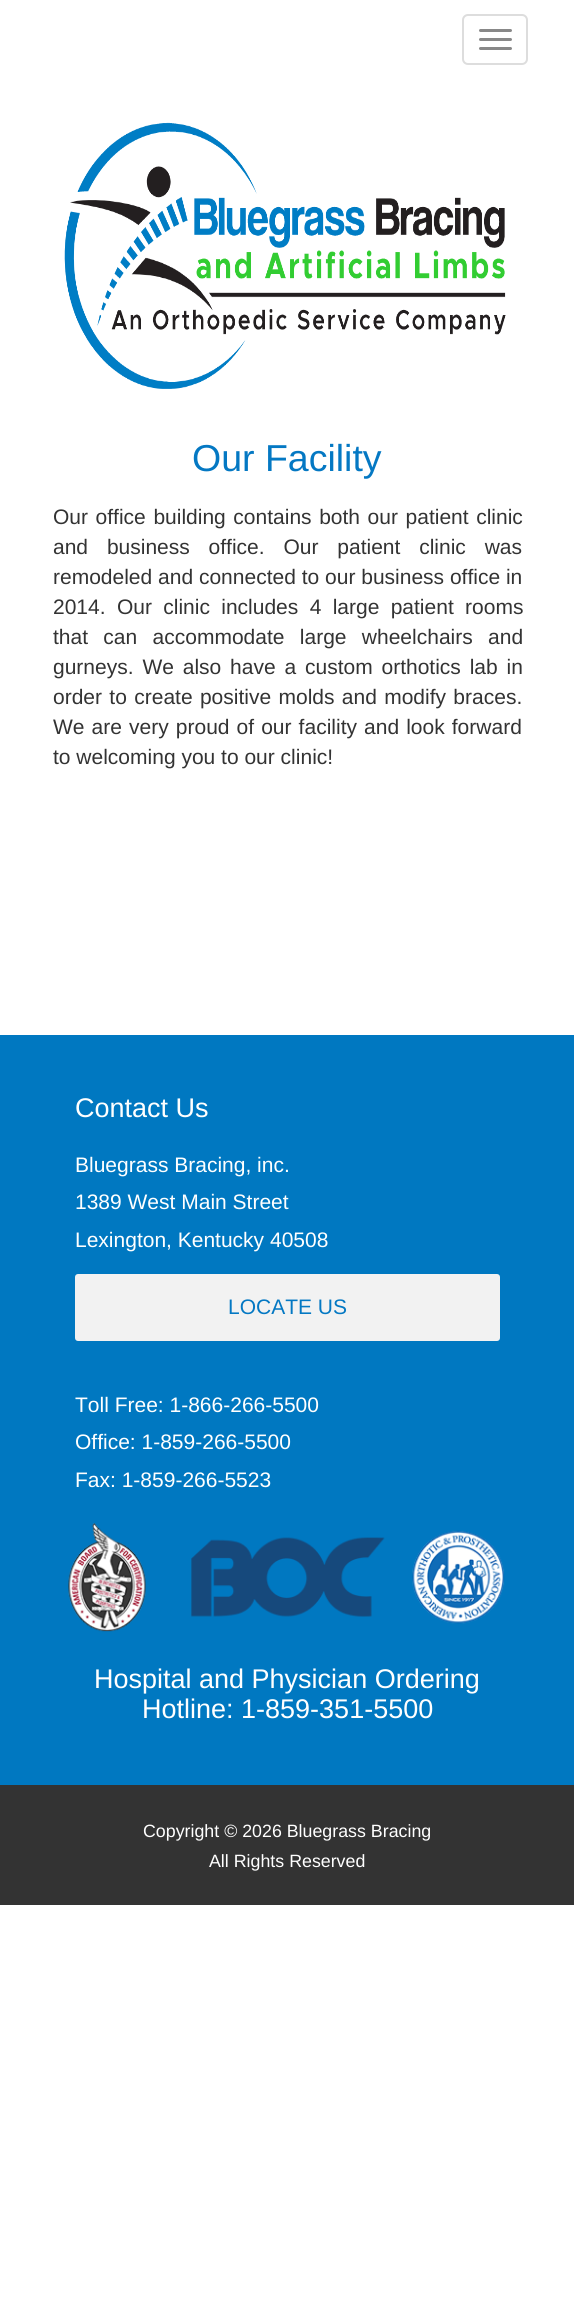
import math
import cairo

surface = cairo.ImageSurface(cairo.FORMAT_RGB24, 574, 2307)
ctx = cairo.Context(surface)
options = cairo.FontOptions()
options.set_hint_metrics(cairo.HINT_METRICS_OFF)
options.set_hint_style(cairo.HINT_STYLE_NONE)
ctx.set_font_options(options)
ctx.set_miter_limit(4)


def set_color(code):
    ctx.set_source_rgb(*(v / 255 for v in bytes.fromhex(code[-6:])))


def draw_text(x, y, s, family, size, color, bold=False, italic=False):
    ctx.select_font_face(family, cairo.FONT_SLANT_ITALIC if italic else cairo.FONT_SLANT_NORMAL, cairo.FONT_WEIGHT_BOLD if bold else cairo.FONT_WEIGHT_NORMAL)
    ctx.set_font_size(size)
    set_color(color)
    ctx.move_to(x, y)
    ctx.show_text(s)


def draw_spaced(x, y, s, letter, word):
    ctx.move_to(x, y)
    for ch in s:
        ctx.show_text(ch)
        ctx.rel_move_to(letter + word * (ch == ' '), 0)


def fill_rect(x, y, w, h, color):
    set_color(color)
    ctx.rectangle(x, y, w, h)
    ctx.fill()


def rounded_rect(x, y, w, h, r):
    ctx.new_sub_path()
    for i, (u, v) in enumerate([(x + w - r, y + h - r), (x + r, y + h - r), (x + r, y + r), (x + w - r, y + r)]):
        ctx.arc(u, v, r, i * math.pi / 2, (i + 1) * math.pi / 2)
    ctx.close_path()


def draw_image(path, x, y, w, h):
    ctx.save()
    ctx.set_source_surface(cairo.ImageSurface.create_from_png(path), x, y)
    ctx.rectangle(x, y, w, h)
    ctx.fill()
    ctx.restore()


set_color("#ffffff")
ctx.paint()
rounded_rect(463, 15, 64, 49, 5)
set_color("#dddddd")
ctx.stroke()
set_color("#888888")
rounded_rect(479, 29, 33, 3, 1.5)
ctx.fill()
rounded_rect(479, 38, 33, 3, 1.5)
ctx.fill()
rounded_rect(479, 47, 33, 3, 1.5)
ctx.fill()
draw_image("assets/img1.png", 64, 122, 442, 267)
draw_text(192, 471, "Our Facility", "Liberation Sans", 37.5, "#0478c3")
ctx.set_font_size(21)
set_color("#333333")
draw_spaced(53, 524, "Our office building contains both our patient clinic", 0, 1.75)
draw_spaced(53, 554, "and business office. Our patient clinic was", 0, 13)
draw_text(53, 584, "remodeled and connected to our business office in", "Liberation Sans", 21, "#333333")
draw_spaced(53, 614, "2014. Our clinic includes 4 large patient rooms", 0, 5.5)
draw_spaced(53, 644, "that can accommodate large wheelchairs and", 0, 9.5)
draw_spaced(53, 674, "gurneys. We also have a custom orthotics lab in", 0, 3)
draw_spaced(53, 704, "order to create positive molds and modify braces.", 0, 1.5)
draw_spaced(53, 734, "We are very proud of our facility and look forward", 0, 1.25)
draw_text(53, 764, "to welcoming you to our clinic!", "Liberation Sans", 21, "#333333")
fill_rect(0, 1035, 574, 750, "#0078c1")
draw_text(75, 1117, "Contact Us", "Liberation Sans", 27, "#ffffff")
draw_text(75, 1172, "Bluegrass Bracing, inc.", "Liberation Sans", 21, "#ffffff")
draw_text(75, 1209, "1389 West Main Street", "Liberation Sans", 21, "#ffffff")
draw_text(75, 1247, "Lexington, Kentucky 40508", "Liberation Sans", 21, "#ffffff")
set_color("#f2f2f2")
rounded_rect(75, 1274, 425, 67, 3)
ctx.fill()
draw_text(228, 1314, "LOCATE US", "Liberation Sans", 21, "#0478c3")
draw_text(75, 1412, "Toll Free: 1-866-266-5500", "Liberation Sans", 21, "#ffffff")
draw_text(75, 1449, "Office: 1-859-266-5500", "Liberation Sans", 21, "#ffffff")
draw_text(75, 1487, "Fax: 1-859-266-5523", "Liberation Sans", 21, "#ffffff")
draw_image("assets/img2.png", 68, 1523, 437, 109)
draw_text(94, 1688, "Hospital and Physician Ordering", "Liberation Sans", 27, "#ffffff")
draw_text(142, 1718, "Hotline: 1-859-351-5500", "Liberation Sans", 27, "#ffffff")
fill_rect(0, 1785, 574, 120, "#333333")
draw_text(143, 1837, "Copyright © 2026 Bluegrass Bracing", "Liberation Sans", 17.8, "#ffffff")
draw_text(209, 1867, "All Rights Reserved", "Liberation Sans", 17.8, "#ffffff")
surface.write_to_png("output.png")
